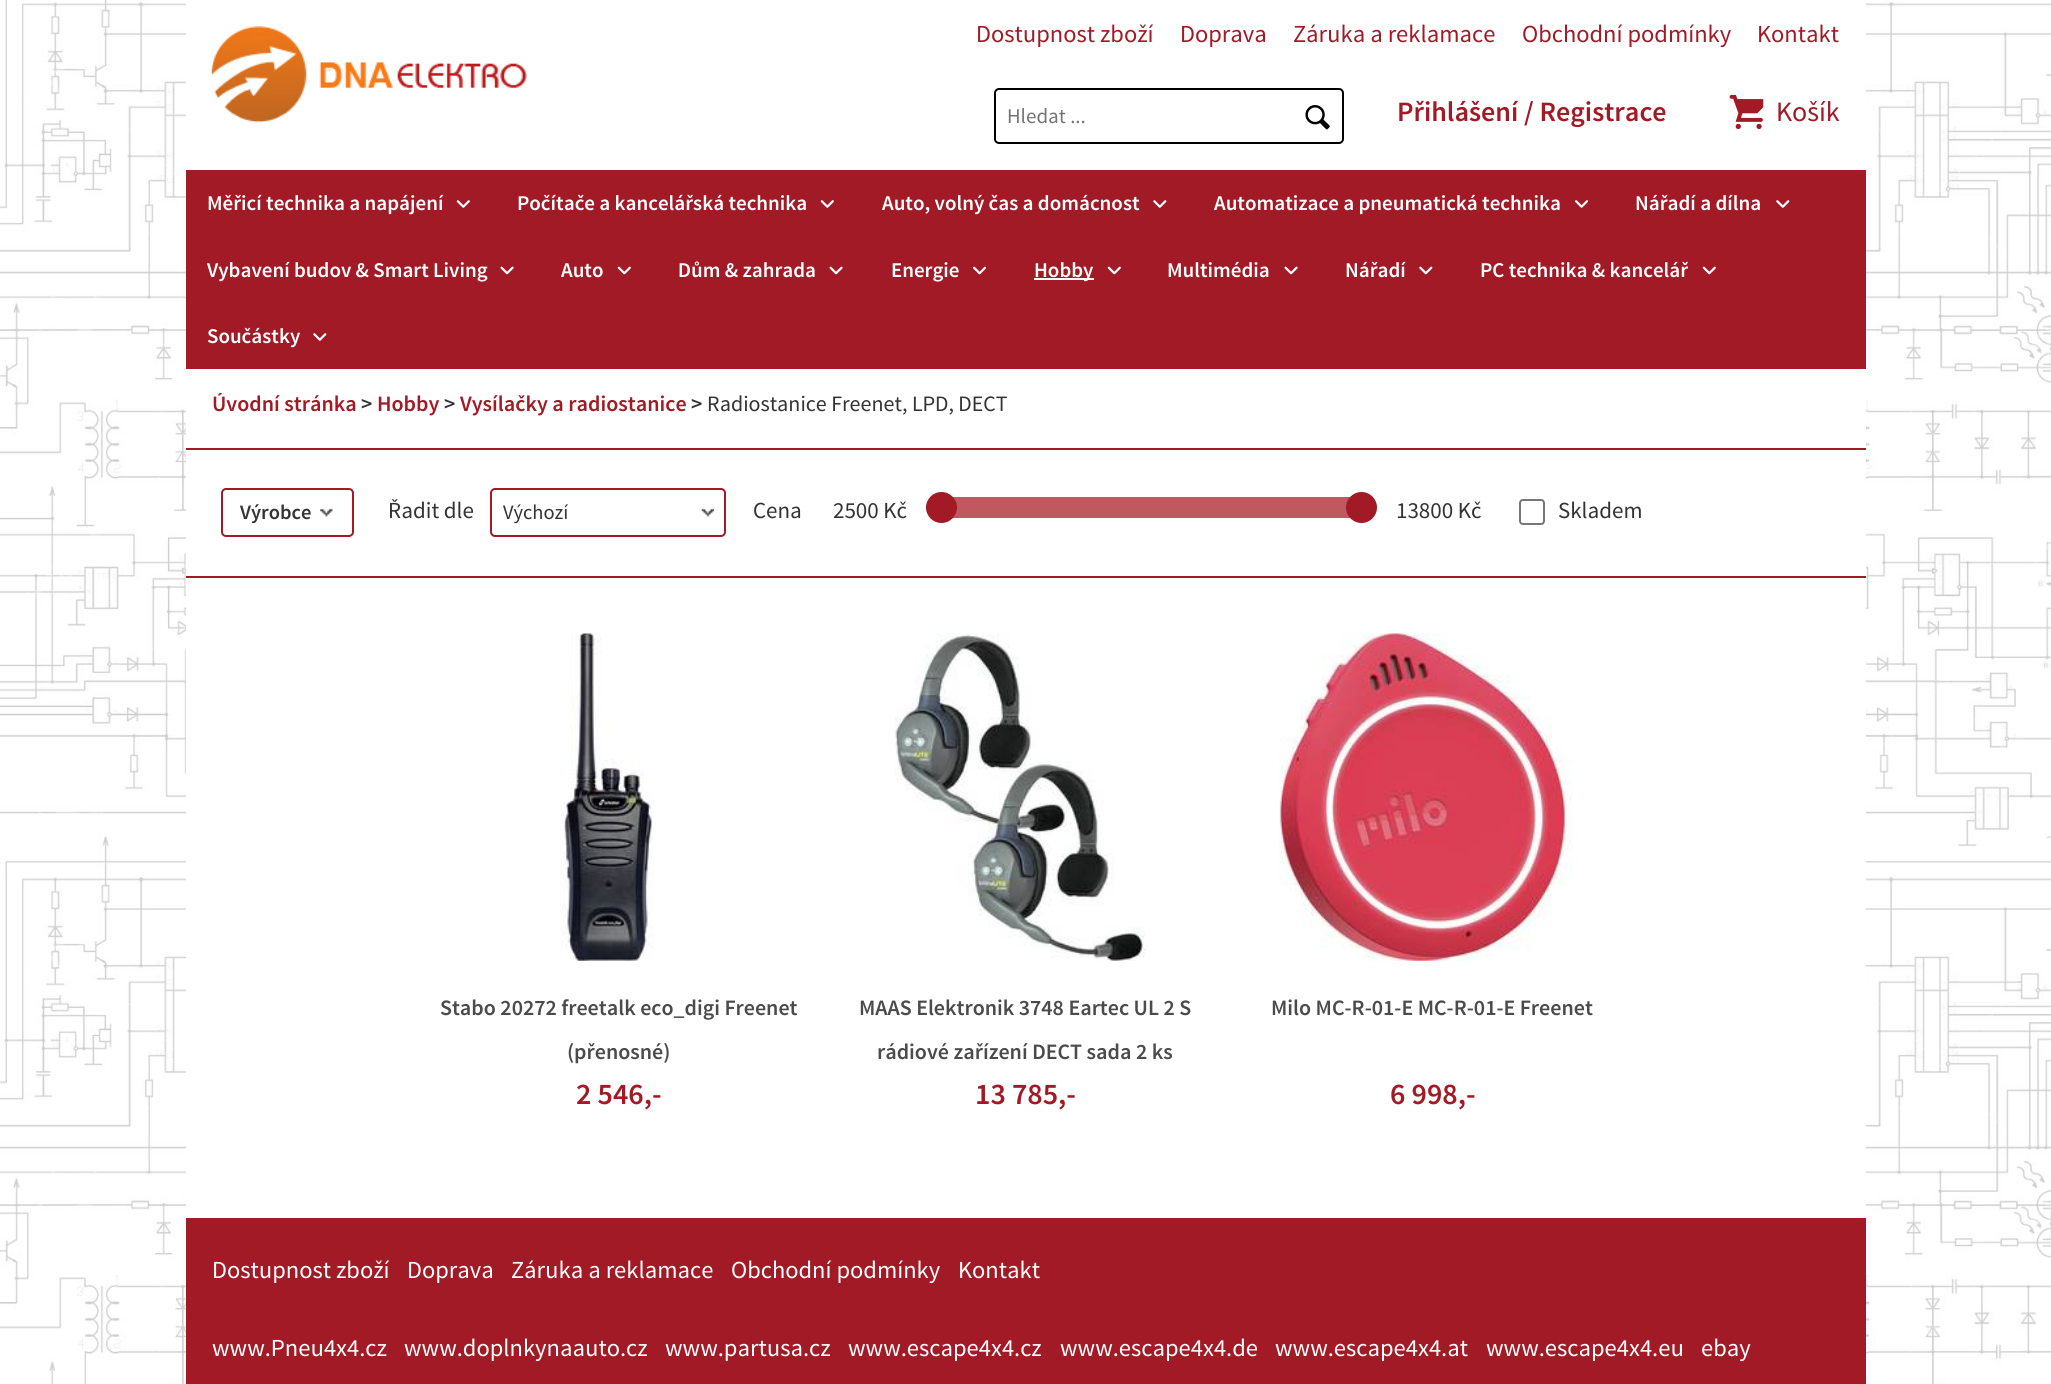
import math
import cairo

surface = cairo.ImageSurface(cairo.FORMAT_RGB24, 2051, 1384)
ctx = cairo.Context(surface)
options = cairo.FontOptions()
options.set_hint_metrics(cairo.HINT_METRICS_OFF)
options.set_hint_style(cairo.HINT_STYLE_NONE)
ctx.set_font_options(options)
ctx.set_miter_limit(4)


def set_color(code):
    ctx.set_source_rgb(*(v / 255 for v in bytes.fromhex(code[-6:])))


def draw_text(x, y, s, family, size, color, bold=False, italic=False):
    ctx.select_font_face(family, cairo.FONT_SLANT_ITALIC if italic else cairo.FONT_SLANT_NORMAL, cairo.FONT_WEIGHT_BOLD if bold else cairo.FONT_WEIGHT_NORMAL)
    ctx.set_font_size(size)
    set_color(color)
    ctx.move_to(x, y)
    ctx.show_text(s)


def fill_rect(x, y, w, h, color):
    set_color(color)
    ctx.rectangle(x, y, w, h)
    ctx.fill()


def rounded_rect(x, y, w, h, r):
    ctx.new_sub_path()
    for i, (u, v) in enumerate([(x + w - r, y + h - r), (x + r, y + h - r), (x + r, y + r), (x + w - r, y + r)]):
        ctx.arc(u, v, r, i * math.pi / 2, (i + 1) * math.pi / 2)
    ctx.close_path()


def draw_image(path, x, y, w, h):
    ctx.save()
    ctx.set_source_surface(cairo.ImageSurface.create_from_png(path), x, y)
    ctx.rectangle(x, y, w, h)
    ctx.fill()
    ctx.restore()


set_color("#ffffff")
ctx.paint()
draw_image("assets/img1.png", 0, 0, 2051, 1384)
fill_rect(186, 0, 1680, 170, "#ffffff")
draw_image("assets/img2.png", 211, 26, 316, 97)
draw_text(976, 42, "Dostupnost zboží", "Source Sans Pro", 24.5, "#a21a25")
draw_text(1180, 42, "Doprava", "Source Sans Pro", 24.5, "#a21a25")
draw_text(1293, 42, "Záruka a reklamace", "Source Sans Pro", 24.5, "#a21a25")
draw_text(1522, 42, "Obchodní podmínky", "Source Sans Pro", 24.5, "#a21a25")
draw_text(1757, 42, "Kontakt", "Source Sans Pro", 24.5, "#a21a25")
rounded_rect(995, 89, 348, 54, 4)
set_color("#000000")
ctx.stroke()
draw_text(1007, 123, "Hledat ...", "Source Sans Pro", 21, "#757575")
draw_image("assets/img3.png", 1305, 105, 25, 25)
draw_text(1397, 121, "Přihlášení / Registrace", "Source Sans Pro SemiBold", 28, "#a21a25")
draw_image("assets/img4.png", 1729, 94, 35, 36)
draw_text(1776, 121, "Košík", "Source Sans Pro", 28, "#a21a25")
fill_rect(186, 170, 1680, 199, "#a21a25")
draw_text(207, 210, "Měřicí technika a napájení", "Source Sans Pro SemiBold", 21, "#ffffff")
draw_image("assets/img5.png", 456, 200, 14, 8)
draw_text(517, 210, "Počítače a kancelářská technika", "Source Sans Pro SemiBold", 21, "#ffffff")
draw_image("assets/img5.png", 820, 200, 14, 8)
draw_text(882, 210, "Auto, volný čas a domácnost", "Source Sans Pro SemiBold", 21, "#ffffff")
draw_image("assets/img6.png", 1153, 200, 14, 8)
draw_text(1214, 210, "Automatizace a pneumatická technika", "Source Sans Pro SemiBold", 21, "#ffffff")
draw_image("assets/img7.png", 1575, 200, 14, 8)
draw_text(1635, 210, "Nářadí a dílna", "Source Sans Pro SemiBold", 21, "#ffffff")
draw_image("assets/img6.png", 1776, 200, 14, 8)
draw_text(207, 277, "Vybavení budov & Smart Living", "Source Sans Pro SemiBold", 21, "#ffffff")
draw_image("assets/img8.png", 500, 266, 14, 9)
draw_text(561, 277, "Auto", "Source Sans Pro SemiBold", 21, "#ffffff")
draw_image("assets/img9.png", 617, 266, 14, 9)
draw_text(678, 277, "Dům & zahrada", "Source Sans Pro SemiBold", 21, "#ffffff")
draw_image("assets/img8.png", 829, 266, 14, 9)
draw_text(891, 277, "Energie", "Source Sans Pro SemiBold", 21, "#ffffff")
draw_image("assets/img10.png", 973, 266, 14, 9)
fill_rect(1034, 278, 60, 2, "#ffffff")
draw_text(1034, 277, "Hobby", "Source Sans Pro SemiBold", 21, "#ffffff")
draw_image("assets/img9.png", 1107, 266, 14, 9)
draw_text(1167, 277, "Multimédia", "Source Sans Pro SemiBold", 21, "#ffffff")
draw_image("assets/img8.png", 1284, 266, 14, 9)
draw_text(1345, 277, "Nářadí", "Source Sans Pro SemiBold", 21, "#ffffff")
draw_image("assets/img11.png", 1419, 266, 14, 9)
draw_text(1480, 277, "PC technika & kancelář", "Source Sans Pro SemiBold", 21, "#ffffff")
draw_image("assets/img9.png", 1702, 266, 14, 9)
draw_text(207, 343, "Součástky", "Source Sans Pro SemiBold", 21, "#ffffff")
draw_image("assets/img6.png", 313, 333, 14, 8)
fill_rect(186, 369, 1680, 849, "#ffffff")
draw_text(212, 411, "Úvodní stránka", "Source Sans Pro SemiBold", 22, "#a21a25")
draw_text(361, 411, ">", "Source Sans Pro SemiBold", 22, "#333333")
draw_text(377, 411, "Hobby", "Source Sans Pro SemiBold", 22, "#a21a25")
draw_text(444, 411, ">", "Source Sans Pro SemiBold", 22, "#333333")
draw_text(460, 411, "Vysílačky a radiostanice", "Source Sans Pro SemiBold", 22, "#a21a25")
draw_text(691, 411, ">", "Source Sans Pro SemiBold", 22, "#333333")
draw_text(707, 411, "Radiostanice Freenet, LPD, DECT", "Source Sans Pro", 22, "#333333")
fill_rect(186, 448, 1680, 2, "#a21a25")
fill_rect(186, 576, 1680, 2, "#a21a25")
draw_image("assets/img12.png", 320, 508, 13, 9)
rounded_rect(222, 489, 131, 47, 4)
ctx.stroke()
draw_text(240, 519, "Výrobce", "Source Sans Pro SemiBold", 20.5, "#333333")
draw_text(388, 518, "Řadit dle", "Source Sans Pro", 23, "#333333")
draw_image("assets/img13.png", 701, 508, 13, 9)
rounded_rect(491, 489, 234, 47, 4)
set_color("#a21a25")
ctx.stroke()
draw_text(503, 519, "Výchozí", "Source Sans Pro", 20.5, "#333333")
draw_text(753, 518, "Cena", "Source Sans Pro", 23, "#333333")
draw_text(833, 518, "2500 Kč", "Source Sans Pro", 23, "#333333")
fill_rect(952, 497, 399, 21, "#bf585f")
set_color("#a21a25")
ctx.new_path()
ctx.arc(941.5, 507.5, 15.5, 0, 2 * math.pi)
ctx.fill()
ctx.arc(1361.5, 507.5, 15.5, 0, 2 * math.pi)
ctx.fill()
draw_text(1396, 518, "13800 Kč", "Source Sans Pro", 23, "#333333")
rounded_rect(1520, 500, 24, 24, 3)
set_color("#767676")
ctx.stroke()
draw_text(1558, 518, "Skladem", "Source Sans Pro", 23, "#333333")
draw_image("assets/img14.png", 560, 633, 94, 328)
draw_text(440, 1015, "Stabo 20272 freetalk eco_digi Freenet", "Source Sans Pro SemiBold", 22, "#4b4b4b")
draw_text(567, 1059, "(přenosné)", "Source Sans Pro SemiBold", 22, "#4b4b4b")
draw_text(576, 1104, "2 546,-", "Source Sans Pro SemiBold", 30, "#a21a25")
draw_image("assets/img15.png", 894, 633, 252, 328)
draw_text(859, 1015, "MAAS Elektronik 3748 Eartec UL 2 S", "Source Sans Pro SemiBold", 22, "#4b4b4b")
draw_text(877, 1059, "rádiové zařízení DECT sada 2 ks", "Source Sans Pro SemiBold", 22, "#4b4b4b")
draw_text(975, 1104, "13 785,-", "Source Sans Pro SemiBold", 30, "#a21a25")
draw_image("assets/img16.png", 1279, 633, 294, 328)
draw_text(1271, 1015, "Milo MC-R-01-E MC-R-01-E Freenet", "Source Sans Pro SemiBold", 22, "#4b4b4b")
draw_text(1390, 1104, "6 998,-", "Source Sans Pro SemiBold", 30, "#a21a25")
fill_rect(186, 1218, 1680, 166, "#a21a25")
draw_text(212, 1278, "Dostupnost zboží", "Source Sans Pro", 24.5, "#ffffff")
draw_text(407, 1278, "Doprava", "Source Sans Pro", 24.5, "#ffffff")
draw_text(511, 1278, "Záruka a reklamace", "Source Sans Pro", 24.5, "#ffffff")
draw_text(731, 1278, "Obchodní podmínky", "Source Sans Pro", 24.5, "#ffffff")
draw_text(958, 1278, "Kontakt", "Source Sans Pro", 24.5, "#ffffff")
draw_text(212, 1356, "www.Pneu4x4.cz", "Source Sans Pro", 24.5, "#ffffff")
draw_text(404, 1356, "www.doplnkynaauto.cz", "Source Sans Pro", 24.5, "#ffffff")
draw_text(665, 1356, "www.partusa.cz", "Source Sans Pro", 24.5, "#ffffff")
draw_text(848, 1356, "www.escape4x4.cz", "Source Sans Pro", 24.5, "#ffffff")
draw_text(1060, 1356, "www.escape4x4.de", "Source Sans Pro", 24.5, "#ffffff")
draw_text(1275, 1356, "www.escape4x4.at", "Source Sans Pro", 24.5, "#ffffff")
draw_text(1486, 1356, "www.escape4x4.eu", "Source Sans Pro", 24.5, "#ffffff")
draw_text(1701, 1356, "ebay", "Source Sans Pro", 24.5, "#ffffff")
surface.write_to_png("output.png")
